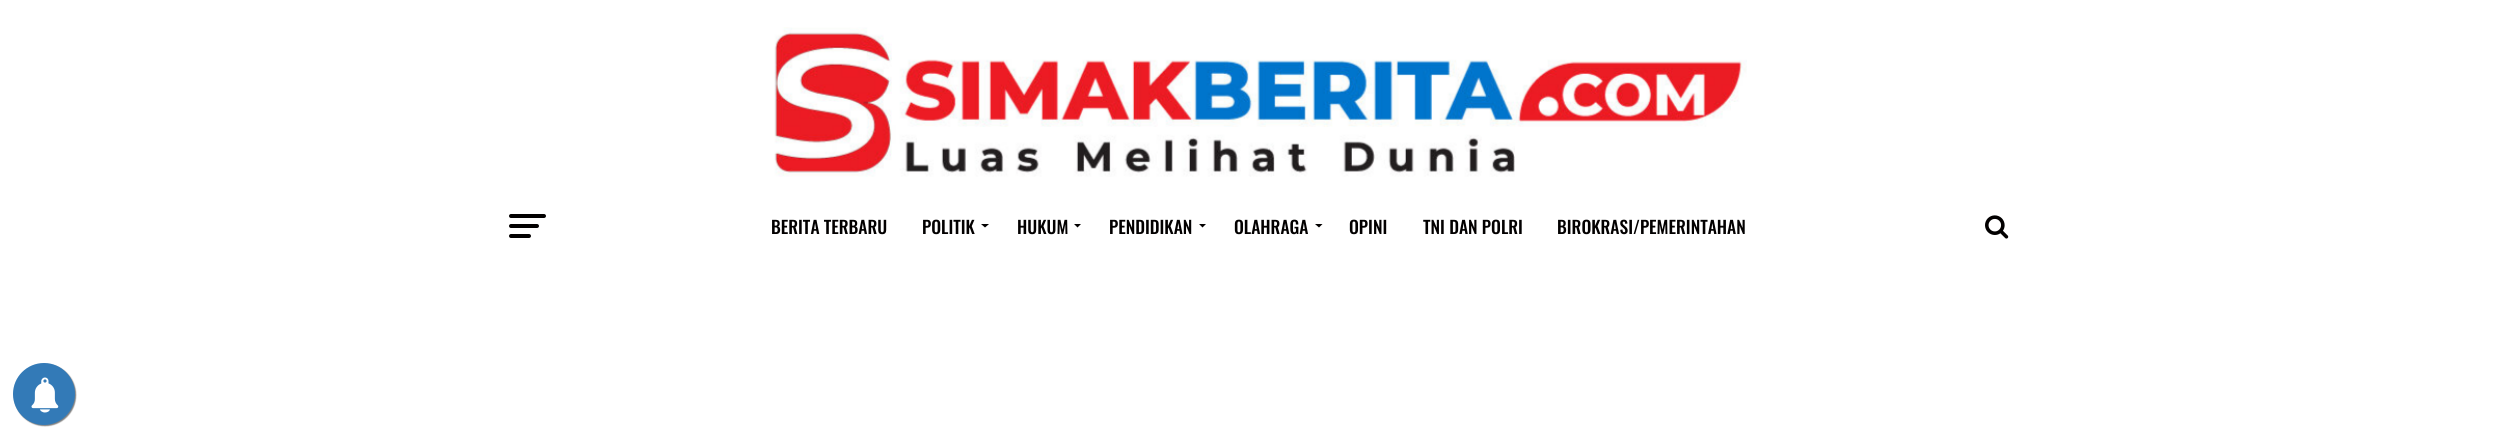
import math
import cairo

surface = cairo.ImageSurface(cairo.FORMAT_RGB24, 2517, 437)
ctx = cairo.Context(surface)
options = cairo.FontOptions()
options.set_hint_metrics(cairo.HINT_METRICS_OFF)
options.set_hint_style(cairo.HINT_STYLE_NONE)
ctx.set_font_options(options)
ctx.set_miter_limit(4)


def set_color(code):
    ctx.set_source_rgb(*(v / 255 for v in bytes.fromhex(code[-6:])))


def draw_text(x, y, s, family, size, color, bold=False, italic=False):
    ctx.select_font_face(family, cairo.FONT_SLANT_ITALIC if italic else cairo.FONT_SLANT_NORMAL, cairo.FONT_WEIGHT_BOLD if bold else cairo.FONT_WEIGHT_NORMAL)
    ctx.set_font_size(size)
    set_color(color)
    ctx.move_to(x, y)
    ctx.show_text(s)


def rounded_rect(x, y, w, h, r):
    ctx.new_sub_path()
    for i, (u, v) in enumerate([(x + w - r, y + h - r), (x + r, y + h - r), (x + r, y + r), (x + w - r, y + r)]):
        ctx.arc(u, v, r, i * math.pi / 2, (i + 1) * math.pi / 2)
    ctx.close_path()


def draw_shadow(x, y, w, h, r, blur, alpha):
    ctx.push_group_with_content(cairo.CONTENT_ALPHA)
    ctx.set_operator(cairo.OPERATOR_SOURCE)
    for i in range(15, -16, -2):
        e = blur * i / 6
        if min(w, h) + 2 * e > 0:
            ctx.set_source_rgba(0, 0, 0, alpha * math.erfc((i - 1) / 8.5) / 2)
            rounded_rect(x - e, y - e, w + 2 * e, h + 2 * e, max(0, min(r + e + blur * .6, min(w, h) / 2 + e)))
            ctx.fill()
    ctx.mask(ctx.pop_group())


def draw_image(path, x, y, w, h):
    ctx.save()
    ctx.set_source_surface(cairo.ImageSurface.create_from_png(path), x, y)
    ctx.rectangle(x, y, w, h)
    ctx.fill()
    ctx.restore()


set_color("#ffffff")
ctx.paint()
draw_image("assets/img1.png", 774, 27, 973, 150)
set_color("#020000")
rounded_rect(509, 214, 37, 4, 2)
ctx.fill()
rounded_rect(509, 224, 30, 4, 2)
ctx.fill()
rounded_rect(509, 234, 22, 4, 2)
ctx.fill()
draw_text(771, 234, "BERITA TERBARU", "Oswald Medium", 17.5, "#020000")
draw_text(922, 234, "POLITIK", "Oswald Medium", 17.5, "#020000")
ctx.new_path()
ctx.move_to(981, 224)
ctx.line_to(989, 224)
ctx.line_to(985, 227.5)
ctx.close_path()
ctx.fill()
draw_text(1017, 234, "HUKUM", "Oswald Medium", 17.5, "#020000")
ctx.new_path()
ctx.move_to(1074, 224)
ctx.line_to(1081, 224)
ctx.line_to(1077.5, 227.5)
ctx.close_path()
ctx.fill()
draw_text(1109, 234, "PENDIDIKAN", "Oswald Medium", 17.5, "#020000")
ctx.new_path()
ctx.move_to(1199, 224)
ctx.line_to(1206, 224)
ctx.line_to(1202.5, 227.5)
ctx.close_path()
ctx.fill()
draw_text(1234, 234, "OLAHRAGA", "Oswald Medium", 17.5, "#020000")
ctx.new_path()
ctx.move_to(1315, 224)
ctx.line_to(1322.5, 224)
ctx.line_to(1319, 227.5)
ctx.close_path()
ctx.fill()
draw_text(1349, 234, "OPINI", "Oswald Medium", 17.5, "#020000")
draw_text(1423, 234, "TNI DAN POLRI", "Oswald Medium", 17.5, "#020000")
draw_text(1557, 234, "BIROKRASI/PEMERINTAHAN", "Oswald Medium", 17.5, "#020000")
draw_image("assets/img2.png", 1985, 215, 24, 24)
set_color("#000000")
draw_shadow(14, 364, 62, 62, 31, 0.5, 0.5)
set_color("#337ab7")
ctx.arc(44, 394, 31, 0, 2 * math.pi)
ctx.fill()
draw_image("assets/img3.png", 31, 377, 28, 36)
surface.write_to_png("output.png")
